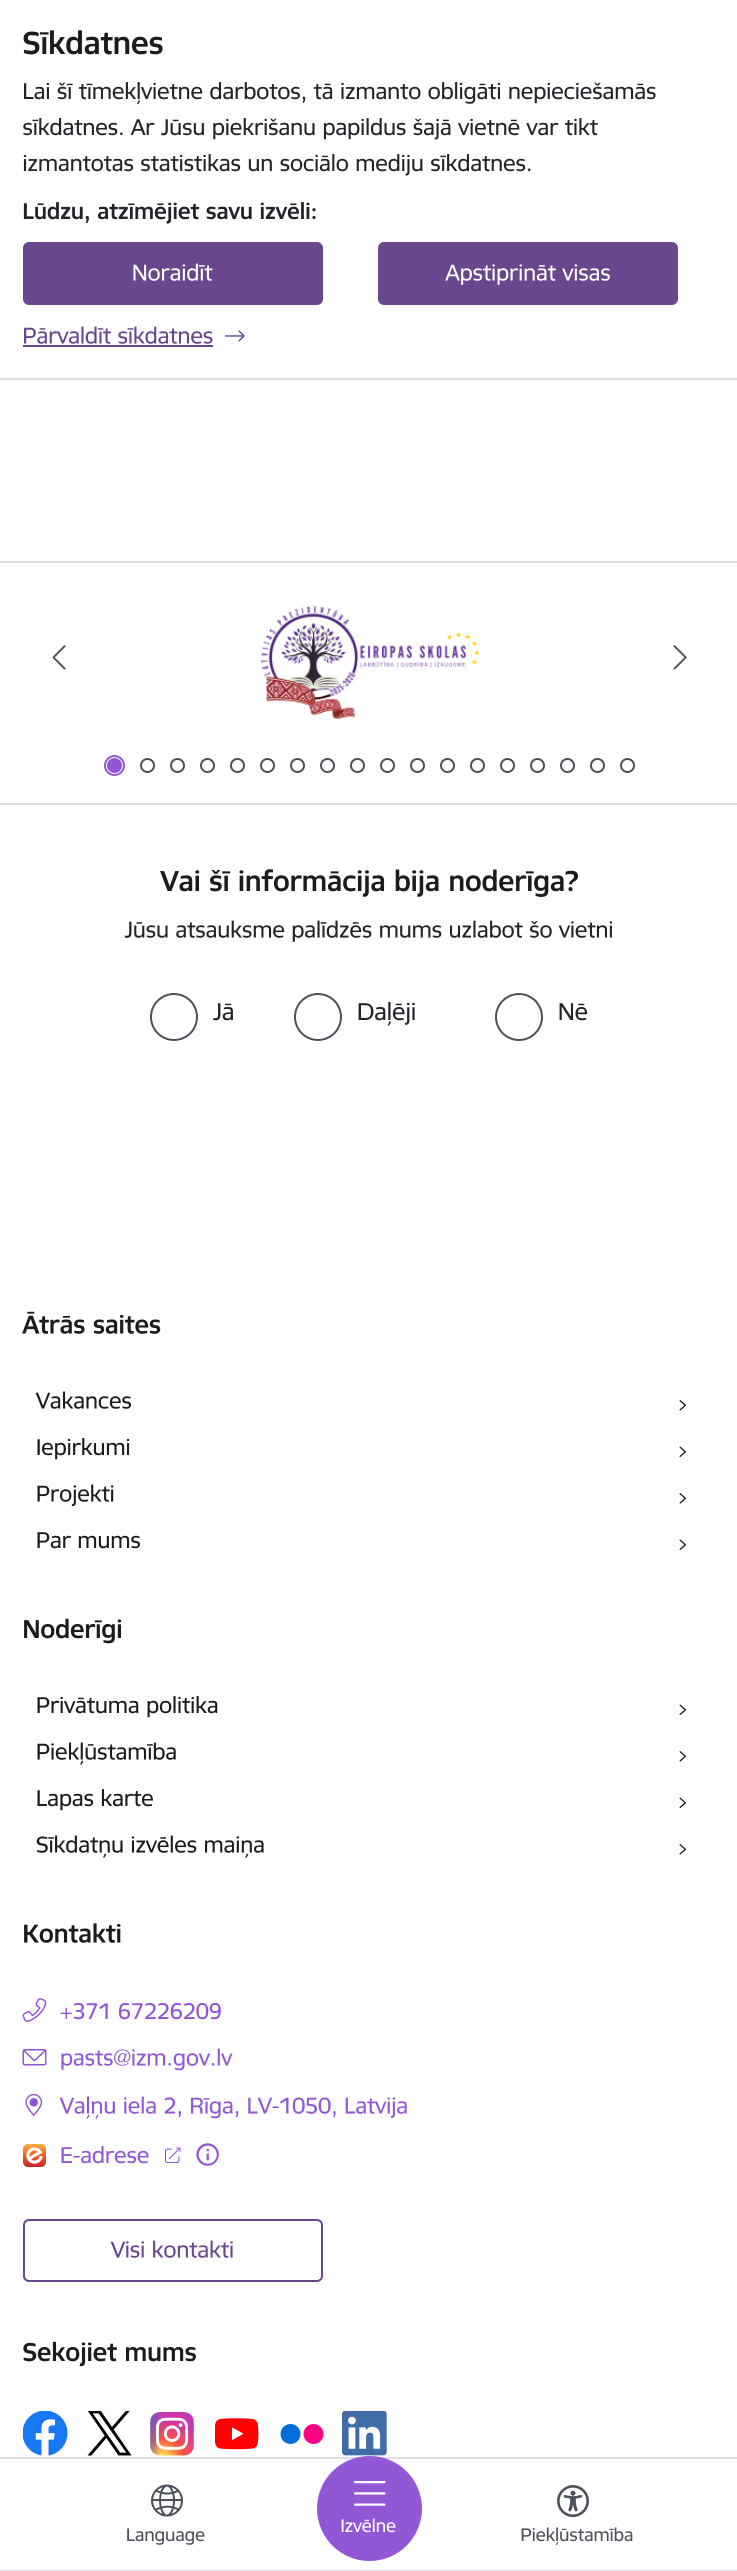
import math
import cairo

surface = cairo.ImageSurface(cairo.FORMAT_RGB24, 737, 2571)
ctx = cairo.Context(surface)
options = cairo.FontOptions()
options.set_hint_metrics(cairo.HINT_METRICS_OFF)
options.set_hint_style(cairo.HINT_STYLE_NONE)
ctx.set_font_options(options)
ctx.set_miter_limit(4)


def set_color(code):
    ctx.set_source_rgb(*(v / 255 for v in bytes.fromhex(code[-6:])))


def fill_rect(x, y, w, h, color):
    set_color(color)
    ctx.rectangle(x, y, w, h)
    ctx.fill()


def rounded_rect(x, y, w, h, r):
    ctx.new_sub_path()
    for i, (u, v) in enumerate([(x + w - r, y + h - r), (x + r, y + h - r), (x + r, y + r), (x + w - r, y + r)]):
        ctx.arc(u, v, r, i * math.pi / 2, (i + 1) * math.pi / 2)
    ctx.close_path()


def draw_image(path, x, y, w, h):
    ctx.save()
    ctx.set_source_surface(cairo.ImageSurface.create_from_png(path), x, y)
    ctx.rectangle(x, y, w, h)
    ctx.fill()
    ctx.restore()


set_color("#ffffff")
ctx.paint()
fill_rect(0, 378, 737, 2, "#dbdee4")
draw_image("assets/img1.png", 23, 30, 140, 25)
draw_image("assets/img2.png", 24, 82, 632, 23)
draw_image("assets/img3.png", 23, 118, 575, 22)
draw_image("assets/img4.png", 23, 154, 508, 22)
draw_image("assets/img5.png", 23, 202, 293, 22)
set_color("#68478d")
rounded_rect(24, 243, 298, 61, 5)
ctx.fill_preserve()
ctx.stroke()
draw_image("assets/img6.png", 133, 263, 80, 18)
rounded_rect(379, 243, 298, 61, 5)
ctx.fill_preserve()
ctx.stroke()
draw_image("assets/img7.png", 445, 264, 165, 21)
draw_image("assets/img8.png", 24, 326, 189, 18)
draw_image("assets/img9.png", 225, 330, 20, 12)
fill_rect(23, 345, 190, 2, "#68478d")
fill_rect(0, 2457, 737, 2, "#dbdee4")
set_color("#9257d5")
ctx.arc(369.5, 2508.5, 52.5, 0, 2 * math.pi)
ctx.fill()
draw_image("assets/img10.png", 354, 2481, 32, 25)
draw_image("assets/img11.png", 341, 2518, 55, 15)
fill_rect(0, 2570, 737, 1, "#dbdee4")
draw_image("assets/img12.png", 151, 2484, 32, 33)
draw_image("assets/img13.png", 127, 2528, 78, 17)
draw_image("assets/img14.png", 557, 2485, 32, 32)
draw_image("assets/img15.png", 521, 2527, 112, 19)
fill_rect(0, 561, 737, 2, "#dbdee4")
draw_image("assets/img16.png", 52, 645, 14, 25)
draw_image("assets/img17.png", 261, 605, 219, 114)
draw_image("assets/img18.png", 673, 645, 14, 25)
ctx.arc(114.5, 765.5, 9.5, 0, 2 * math.pi)
set_color("#9257d5")
ctx.stroke()
ctx.arc(114.5, 765.5, 7.5, 0, 2 * math.pi)
ctx.fill()
ctx.arc(147.5, 765.5, 6.5, 0, 2 * math.pi)
set_color("#4c5059")
ctx.stroke()
ctx.arc(177.5, 765.5, 6.5, 0, 2 * math.pi)
ctx.stroke()
ctx.arc(207.5, 765.5, 6.5, 0, 2 * math.pi)
ctx.stroke()
ctx.arc(237.5, 765.5, 6.5, 0, 2 * math.pi)
ctx.stroke()
ctx.arc(267.5, 765.5, 6.5, 0, 2 * math.pi)
ctx.stroke()
ctx.arc(297.5, 765.5, 6.5, 0, 2 * math.pi)
ctx.stroke()
ctx.arc(327.5, 765.5, 6.5, 0, 2 * math.pi)
ctx.stroke()
ctx.arc(357.5, 765.5, 6.5, 0, 2 * math.pi)
ctx.stroke()
ctx.arc(387.5, 765.5, 6.5, 0, 2 * math.pi)
ctx.stroke()
ctx.arc(417.5, 765.5, 6.5, 0, 2 * math.pi)
ctx.stroke()
ctx.arc(447.5, 765.5, 6.5, 0, 2 * math.pi)
ctx.stroke()
ctx.arc(477.5, 765.5, 6.5, 0, 2 * math.pi)
ctx.stroke()
ctx.arc(507.5, 765.5, 6.5, 0, 2 * math.pi)
ctx.stroke()
ctx.arc(537.5, 765.5, 6.5, 0, 2 * math.pi)
ctx.stroke()
ctx.arc(567.5, 765.5, 6.5, 0, 2 * math.pi)
ctx.stroke()
ctx.arc(597.5, 765.5, 6.5, 0, 2 * math.pi)
ctx.stroke()
ctx.arc(627.5, 765.5, 6.5, 0, 2 * math.pi)
ctx.stroke()
fill_rect(0, 803, 737, 2, "#dbdee4")
draw_image("assets/img19.png", 160, 869, 419, 28)
draw_image("assets/img20.png", 124, 920, 489, 22)
ctx.arc(174, 1017, 23, 0, 2 * math.pi)
set_color("#4c5059")
ctx.stroke()
draw_image("assets/img21.png", 213, 1003, 20, 18)
ctx.arc(318, 1017, 23, 0, 2 * math.pi)
ctx.stroke()
draw_image("assets/img22.png", 358, 1001, 57, 25)
ctx.arc(519, 1017, 23, 0, 2 * math.pi)
ctx.stroke()
draw_image("assets/img23.png", 559, 1003, 29, 18)
draw_image("assets/img24.png", 22, 1311, 139, 23)
draw_image("assets/img25.png", 35, 1391, 96, 18)
draw_image("assets/img26.png", 679, 1400, 7, 11)
draw_image("assets/img27.png", 37, 1438, 93, 22)
draw_image("assets/img28.png", 679, 1446, 7, 11)
draw_image("assets/img29.png", 37, 1484, 77, 23)
draw_image("assets/img26.png", 679, 1493, 7, 11)
draw_image("assets/img30.png", 37, 1532, 103, 17)
draw_image("assets/img28.png", 679, 1539, 7, 11)
draw_image("assets/img31.png", 24, 1618, 98, 26)
draw_image("assets/img32.png", 37, 1696, 181, 22)
draw_image("assets/img28.png", 679, 1704, 7, 11)
draw_image("assets/img33.png", 37, 1742, 139, 23)
draw_image("assets/img26.png", 679, 1751, 7, 11)
draw_image("assets/img34.png", 37, 1789, 116, 22)
draw_image("assets/img28.png", 679, 1797, 7, 11)
draw_image("assets/img35.png", 36, 1835, 228, 23)
draw_image("assets/img26.png", 679, 1844, 7, 11)
draw_image("assets/img36.png", 24, 1923, 97, 20)
draw_image("assets/img37.png", 22, 1998, 25, 24)
draw_image("assets/img38.png", 60, 2002, 161, 18)
draw_image("assets/img39.png", 22, 2049, 25, 17)
draw_image("assets/img40.png", 61, 2048, 172, 23)
draw_image("assets/img41.png", 25, 2093, 18, 24)
draw_image("assets/img42.png", 59, 2096, 348, 23)
draw_image("assets/img43.png", 23, 2144, 23, 23)
draw_image("assets/img44.png", 61, 2146, 88, 18)
draw_image("assets/img45.png", 165, 2147, 16, 16)
draw_image("assets/img46.png", 196, 2143, 23, 23)
rounded_rect(24, 2220, 298, 61, 5)
set_color("#68478d")
ctx.stroke()
draw_image("assets/img47.png", 110, 2240, 123, 18)
draw_image("assets/img48.png", 23, 2341, 173, 26)
draw_image("assets/img49.png", 23, 2411, 45, 45)
draw_image("assets/img50.png", 87, 2411, 45, 45)
draw_image("assets/img51.png", 150, 2412, 44, 44)
draw_image("assets/img52.png", 215, 2418, 44, 32)
set_color("#006ddf")
ctx.arc(290.5, 2434, 10, 0, 2 * math.pi)
ctx.fill()
set_color("#ff0085")
ctx.arc(313.5, 2434, 10, 0, 2 * math.pi)
ctx.fill()
draw_image("assets/img53.png", 342, 2411, 45, 45)
surface.write_to_png("output.png")
